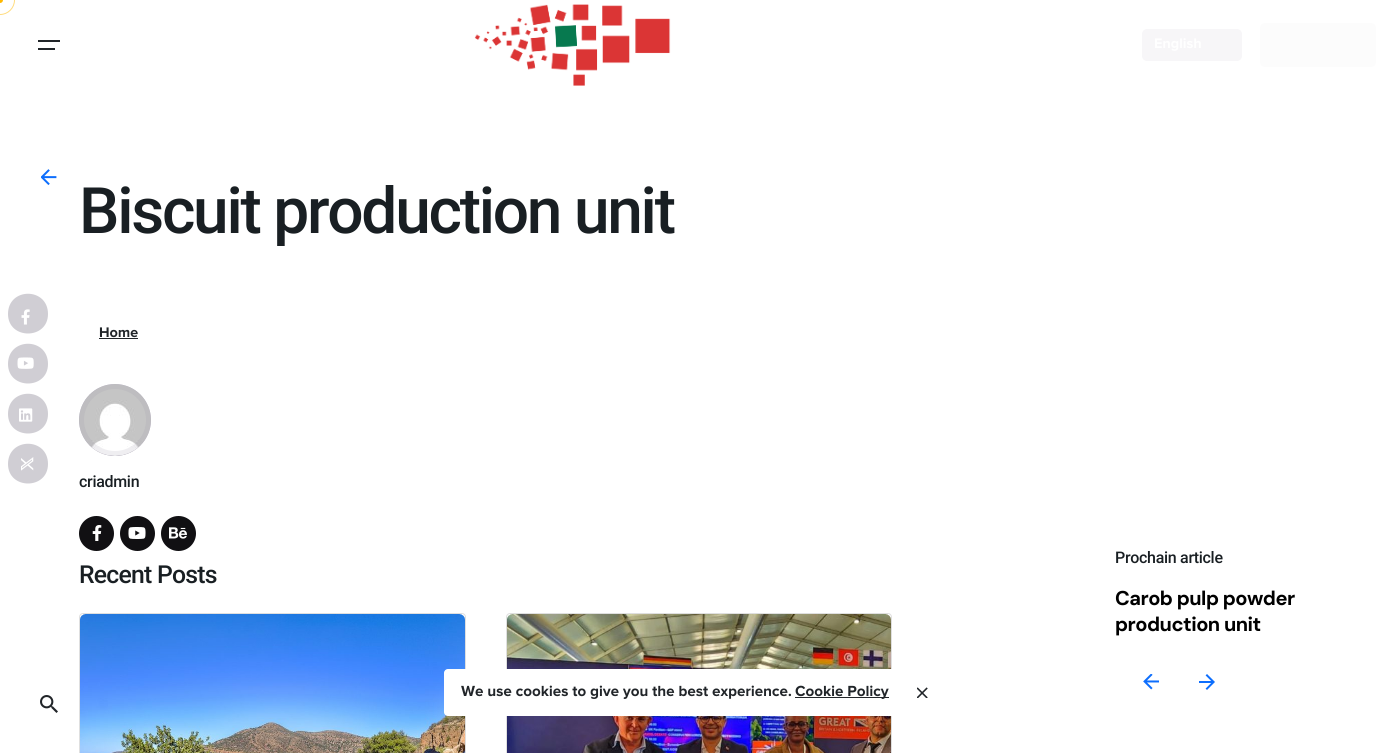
import math
import cairo

surface = cairo.ImageSurface(cairo.FORMAT_RGB24, 1398, 753)
ctx = cairo.Context(surface)
options = cairo.FontOptions()
options.set_hint_metrics(cairo.HINT_METRICS_OFF)
options.set_hint_style(cairo.HINT_STYLE_NONE)
ctx.set_font_options(options)
ctx.set_miter_limit(4)


def set_color(code):
    ctx.set_source_rgb(*(v / 255 for v in bytes.fromhex(code[-6:])))


def draw_spaced(x, y, s, letter, word):
    ctx.move_to(x, y)
    for ch in s:
        ctx.show_text(ch)
        ctx.rel_move_to(letter + word * (ch == ' '), 0)


def fill_rect(x, y, w, h, color):
    set_color(color)
    ctx.rectangle(x, y, w, h)
    ctx.fill()


def rounded_rect(x, y, w, h, r):
    ctx.new_sub_path()
    for i, (u, v) in enumerate([(x + w - r, y + h - r), (x + r, y + h - r), (x + r, y + r), (x + w - r, y + r)]):
        ctx.arc(u, v, r, i * math.pi / 2, (i + 1) * math.pi / 2)
    ctx.close_path()


def draw_image(path, x, y, w, h):
    ctx.save()
    ctx.set_source_surface(cairo.ImageSurface.create_from_png(path), x, y)
    ctx.rectangle(x, y, w, h)
    ctx.fill()
    ctx.restore()


set_color("#ffffff")
ctx.paint()
ctx.arc(0, 0, 14.5, 0, 2 * math.pi)
set_color("#ffdc80")
ctx.set_line_width(1)
ctx.stroke()
set_color("#ffb800")
ctx.arc(0, 0, 3, 0, 2 * math.pi)
ctx.fill()
fill_rect(38, 40, 22, 2, "#212529")
fill_rect(38, 48, 17, 2, "#212529")
draw_image("assets/img1.png", 474, 4, 197, 82)
set_color("#f7f6f8")
rounded_rect(1141.5, 28.5, 101, 33, 5.5)
ctx.fill_preserve()
set_color("#ffffff")
ctx.stroke()
draw_image("assets/img2.png", 1155, 38, 46, 13)
set_color("#fcfcfc")
rounded_rect(1259.5, 22.5, 117, 45, 5.5)
ctx.fill_preserve()
set_color("#ffffff")
ctx.stroke()
set_color("#d0ced4")
ctx.new_path()
ctx.move_to(8, 314)
ctx.curve_to(8, 287, 48, 287, 48, 314)
ctx.curve_to(48, 340, 8, 340, 8, 314)
ctx.close_path()
ctx.fill()
draw_image("assets/img3.png", 21, 309, 9, 16)
ctx.new_path()
ctx.move_to(8, 364)
ctx.curve_to(8, 337, 48, 337, 48, 364)
ctx.curve_to(48, 390, 8, 390, 8, 364)
ctx.close_path()
ctx.fill()
draw_image("assets/img4.png", 17, 357, 17, 12)
ctx.new_path()
ctx.move_to(8, 414)
ctx.curve_to(8, 387, 48, 387, 48, 414)
ctx.curve_to(48, 440, 8, 440, 8, 414)
ctx.close_path()
ctx.fill()
draw_image("assets/img5.png", 19, 408, 14, 14)
ctx.new_path()
ctx.move_to(8, 464)
ctx.curve_to(8, 437, 48, 437, 48, 464)
ctx.curve_to(48, 490, 8, 490, 8, 464)
ctx.close_path()
ctx.fill()
draw_image("assets/img6.png", 21, 457, 13, 14)
draw_image("assets/img7.png", 41, 169, 16, 16)
ctx.select_font_face("Roboto Medium")
ctx.set_font_size(64)
set_color("#191f23")
draw_spaced(79, 233, "Biscuit production unit", -2.25, 0)
draw_image("assets/img8.png", 99, 327, 39, 11)
fill_rect(99, 338, 39, 1, "#212529")
set_color("#dad8de")
ctx.arc(115, 420, 36, 0, 2 * math.pi)
ctx.fill()
ctx.set_source_rgba(0.588, 0.565, 0.635, 0.35)
ctx.arc(115, 420, 36, 0, 2 * math.pi)
ctx.fill()
draw_image("assets/img9.png", 79, 384, 72, 72)
ctx.arc(115, 420, 33.5, 0, 2 * math.pi)
ctx.set_source_rgba(0.588, 0.565, 0.635, 0.15)
ctx.set_line_width(5)
ctx.stroke()
ctx.set_font_size(16)
set_color("#191f23")
draw_spaced(79, 487, "criadmin", -0.3, 0)
set_color("#111013")
ctx.new_path()
ctx.arc(96.5, 533.5, 17.5, 0, 2 * math.pi)
ctx.fill()
draw_image("assets/img10.png", 92, 525, 10, 16)
ctx.arc(137.5, 533.5, 17.5, 0, 2 * math.pi)
ctx.fill()
draw_image("assets/img11.png", 128, 527, 18, 12)
ctx.arc(178.5, 533.5, 17.5, 0, 2 * math.pi)
ctx.fill()
draw_image("assets/img12.png", 169, 527, 18, 12)
ctx.set_font_size(24.75)
set_color("#191f23")
draw_spaced(79, 583, "Recent Posts", -0.75, 0)
rounded_rect(79.5, 613.5, 386, 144, 3.5)
set_color("#dfdfdf")
ctx.set_line_width(1)
ctx.stroke()
draw_image("assets/img13.png", 80, 614, 385, 139)
rounded_rect(506.5, 613.5, 385, 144, 3.5)
ctx.stroke()
draw_image("assets/img14.png", 507, 614, 384, 139)
ctx.set_font_size(16)
set_color("#191f23")
draw_spaced(1115, 563, "Prochain article", -0.3, 0)
ctx.select_font_face("DM Sans", cairo.FONT_SLANT_NORMAL, cairo.FONT_WEIGHT_BOLD)
ctx.set_font_size(20)
set_color("#000000")
draw_spaced(1115, 605, "Carob pulp powder", -0.5, 0)
draw_spaced(1115, 631, "production unit", -0.5, 0)
draw_image("assets/img15.png", 1143, 674, 16, 16)
draw_image("assets/img16.png", 1199, 674, 16, 16)
draw_image("assets/img17.png", 40, 695, 18, 18)
set_color("#ffffff")
rounded_rect(444, 669, 510, 47, 4)
ctx.fill()
draw_image("assets/img18.png", 461, 685, 331, 14)
fill_rect(795, 697, 94, 1, "#212529")
draw_image("assets/img19.png", 795, 685, 94, 14)
draw_image("assets/img20.png", 917, 687, 11, 11)
surface.write_to_png("output.png")
